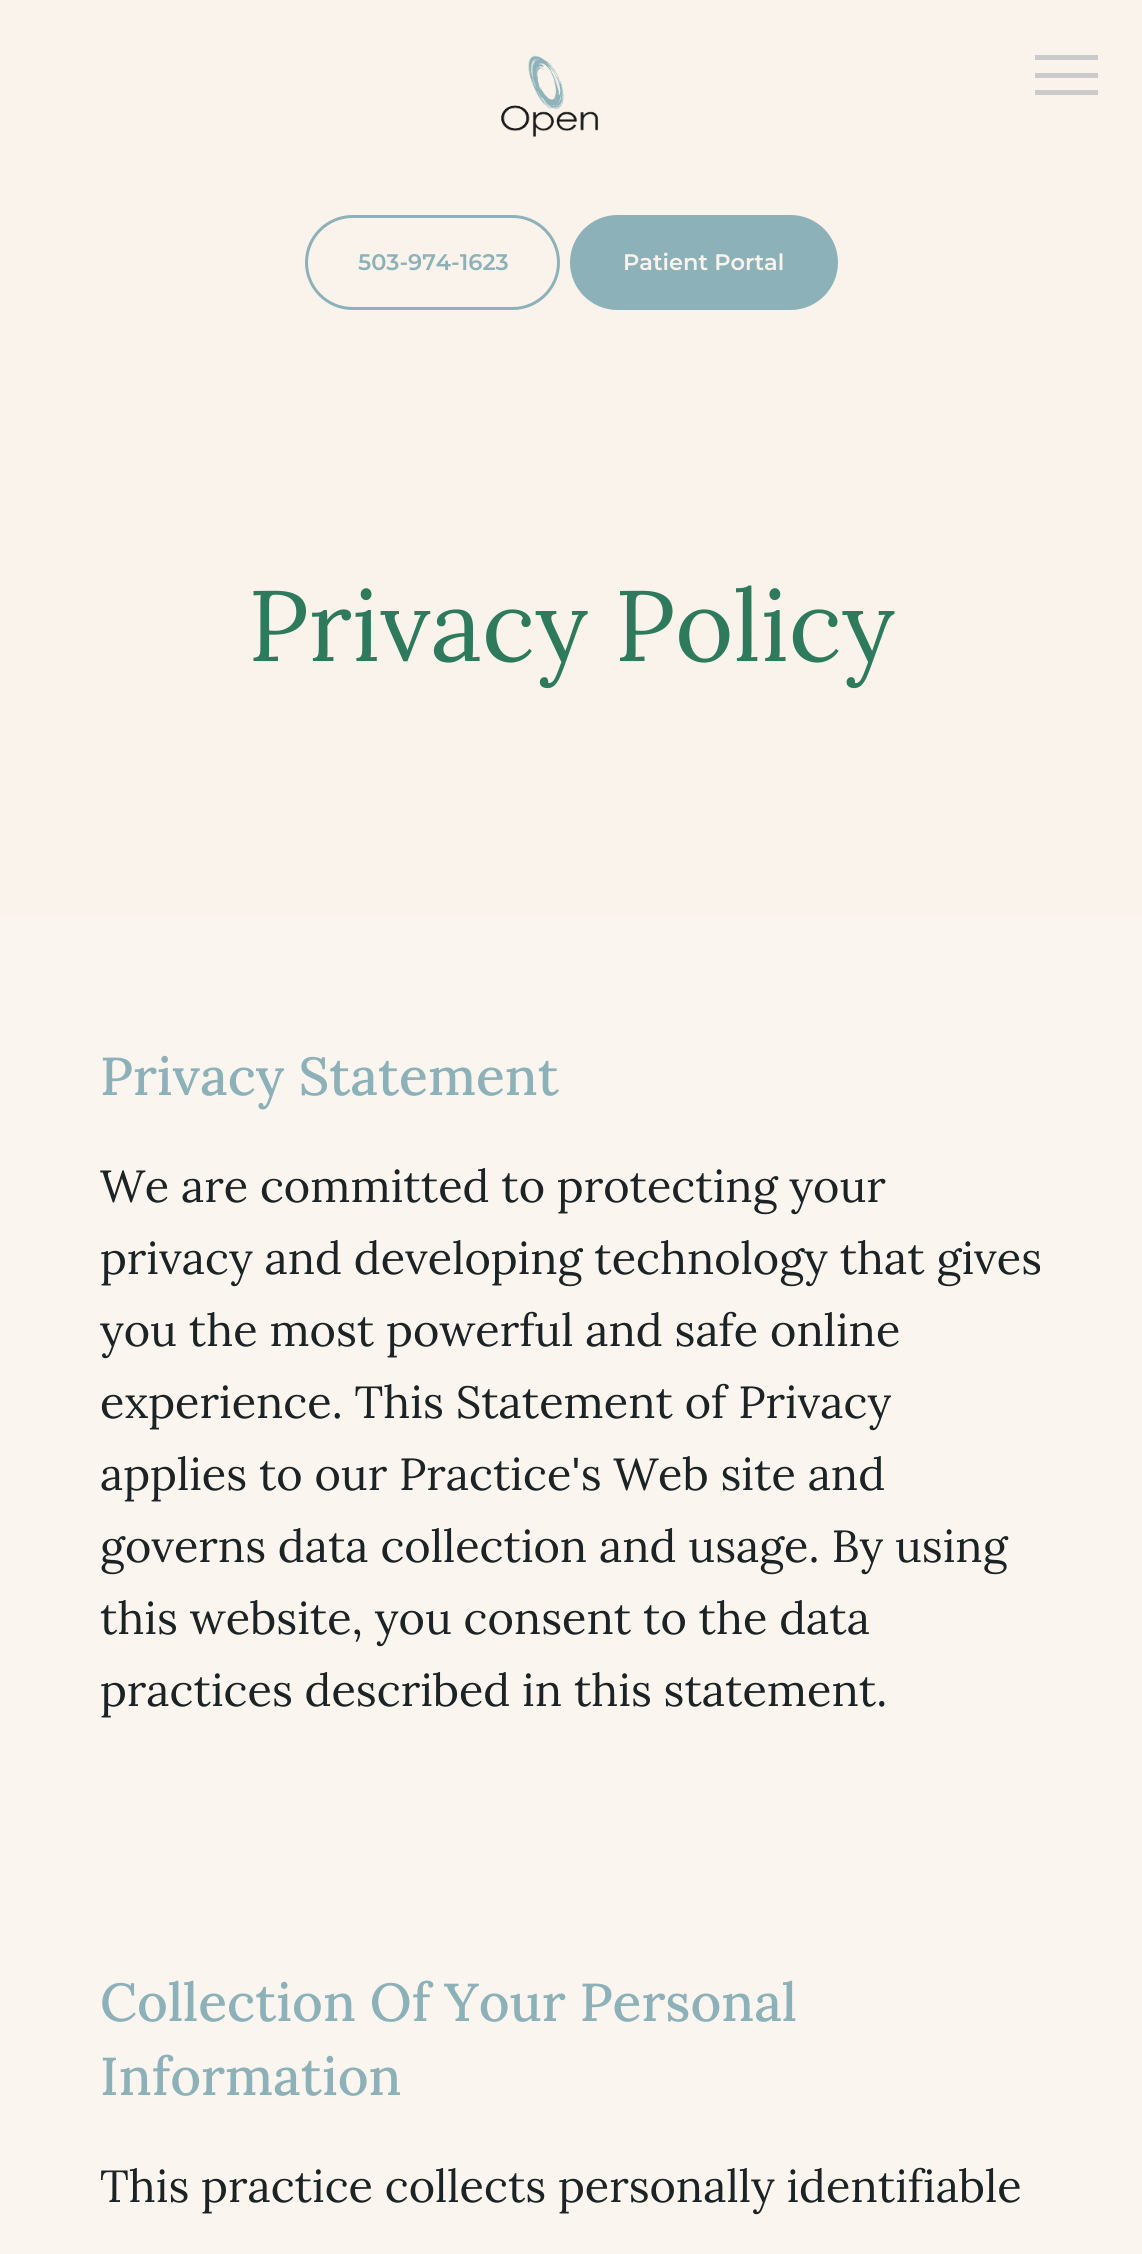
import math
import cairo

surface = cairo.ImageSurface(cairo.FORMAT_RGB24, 1142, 2254)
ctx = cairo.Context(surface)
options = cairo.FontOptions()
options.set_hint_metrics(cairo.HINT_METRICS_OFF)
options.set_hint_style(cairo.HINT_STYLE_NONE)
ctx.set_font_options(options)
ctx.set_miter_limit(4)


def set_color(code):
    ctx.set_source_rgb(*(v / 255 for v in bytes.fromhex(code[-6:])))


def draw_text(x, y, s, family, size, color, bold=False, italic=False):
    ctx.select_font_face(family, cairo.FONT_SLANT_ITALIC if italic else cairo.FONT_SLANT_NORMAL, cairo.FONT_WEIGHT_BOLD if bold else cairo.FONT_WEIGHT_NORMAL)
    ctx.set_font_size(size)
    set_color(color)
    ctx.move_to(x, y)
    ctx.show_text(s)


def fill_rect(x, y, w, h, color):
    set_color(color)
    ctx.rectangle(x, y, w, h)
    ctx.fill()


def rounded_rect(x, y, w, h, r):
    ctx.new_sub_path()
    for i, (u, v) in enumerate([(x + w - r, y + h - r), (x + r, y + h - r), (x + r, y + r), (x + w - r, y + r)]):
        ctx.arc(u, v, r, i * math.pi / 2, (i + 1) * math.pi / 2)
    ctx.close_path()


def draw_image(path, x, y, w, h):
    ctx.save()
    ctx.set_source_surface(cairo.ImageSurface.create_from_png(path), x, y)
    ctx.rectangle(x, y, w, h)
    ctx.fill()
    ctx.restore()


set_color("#faf3eb")
ctx.paint()
draw_image("assets/img1.png", 501, 55, 98, 82)
fill_rect(1035, 55, 63, 5, "#cacaca")
fill_rect(1035, 90, 63, 5, "#cacaca")
fill_rect(1035, 73, 63, 5, "#cacaca")
rounded_rect(306.5, 216.5, 252, 92, 46)
set_color("#8db1b8")
ctx.set_line_width(3)
ctx.stroke()
draw_text(358, 270, "503-974-1623", "Montserrat SemiBold", 22.5, "#8db1b8")
rounded_rect(571.5, 216.5, 265, 92, 46)
ctx.fill_preserve()
ctx.stroke()
draw_text(623, 270, "Patient Portal", "Montserrat SemiBold", 22.5, "#faf3eb")
draw_text(248, 661, "Privacy Policy", "Lora", 100, "#2e7a5d")
fill_rect(0, 915, 1142, 1339, "#fbf5ef")
draw_text(100, 1095, "Privacy Statement", "Lora Medium", 53.3, "#8db1b8")
draw_text(100, 1202, "We are committed to protecting your", "Lora", 45, "#1c2325")
draw_text(100, 1274, "privacy and developing technology that gives", "Lora", 45, "#1c2325")
draw_text(100, 1346, "you the most powerful and safe online", "Lora", 45, "#1c2325")
draw_text(100, 1418, "experience. This Statement of Privacy", "Lora", 45, "#1c2325")
draw_text(100, 1490, "applies to our Practice's Web site and", "Lora", 45, "#1c2325")
draw_text(100, 1562, "governs data collection and usage. By using", "Lora", 45, "#1c2325")
draw_text(100, 1634, "this website, you consent to the data", "Lora", 45, "#1c2325")
draw_text(100, 1706, "practices described in this statement.", "Lora", 45, "#1c2325")
draw_text(100, 2021, "Collection Of Your Personal", "Lora Medium", 53.3, "#8db1b8")
draw_text(100, 2095, "Information", "Lora Medium", 53.3, "#8db1b8")
draw_text(100, 2202, "This practice collects personally identifiable", "Lora", 45, "#1c2325")
surface.write_to_png("output.png")
